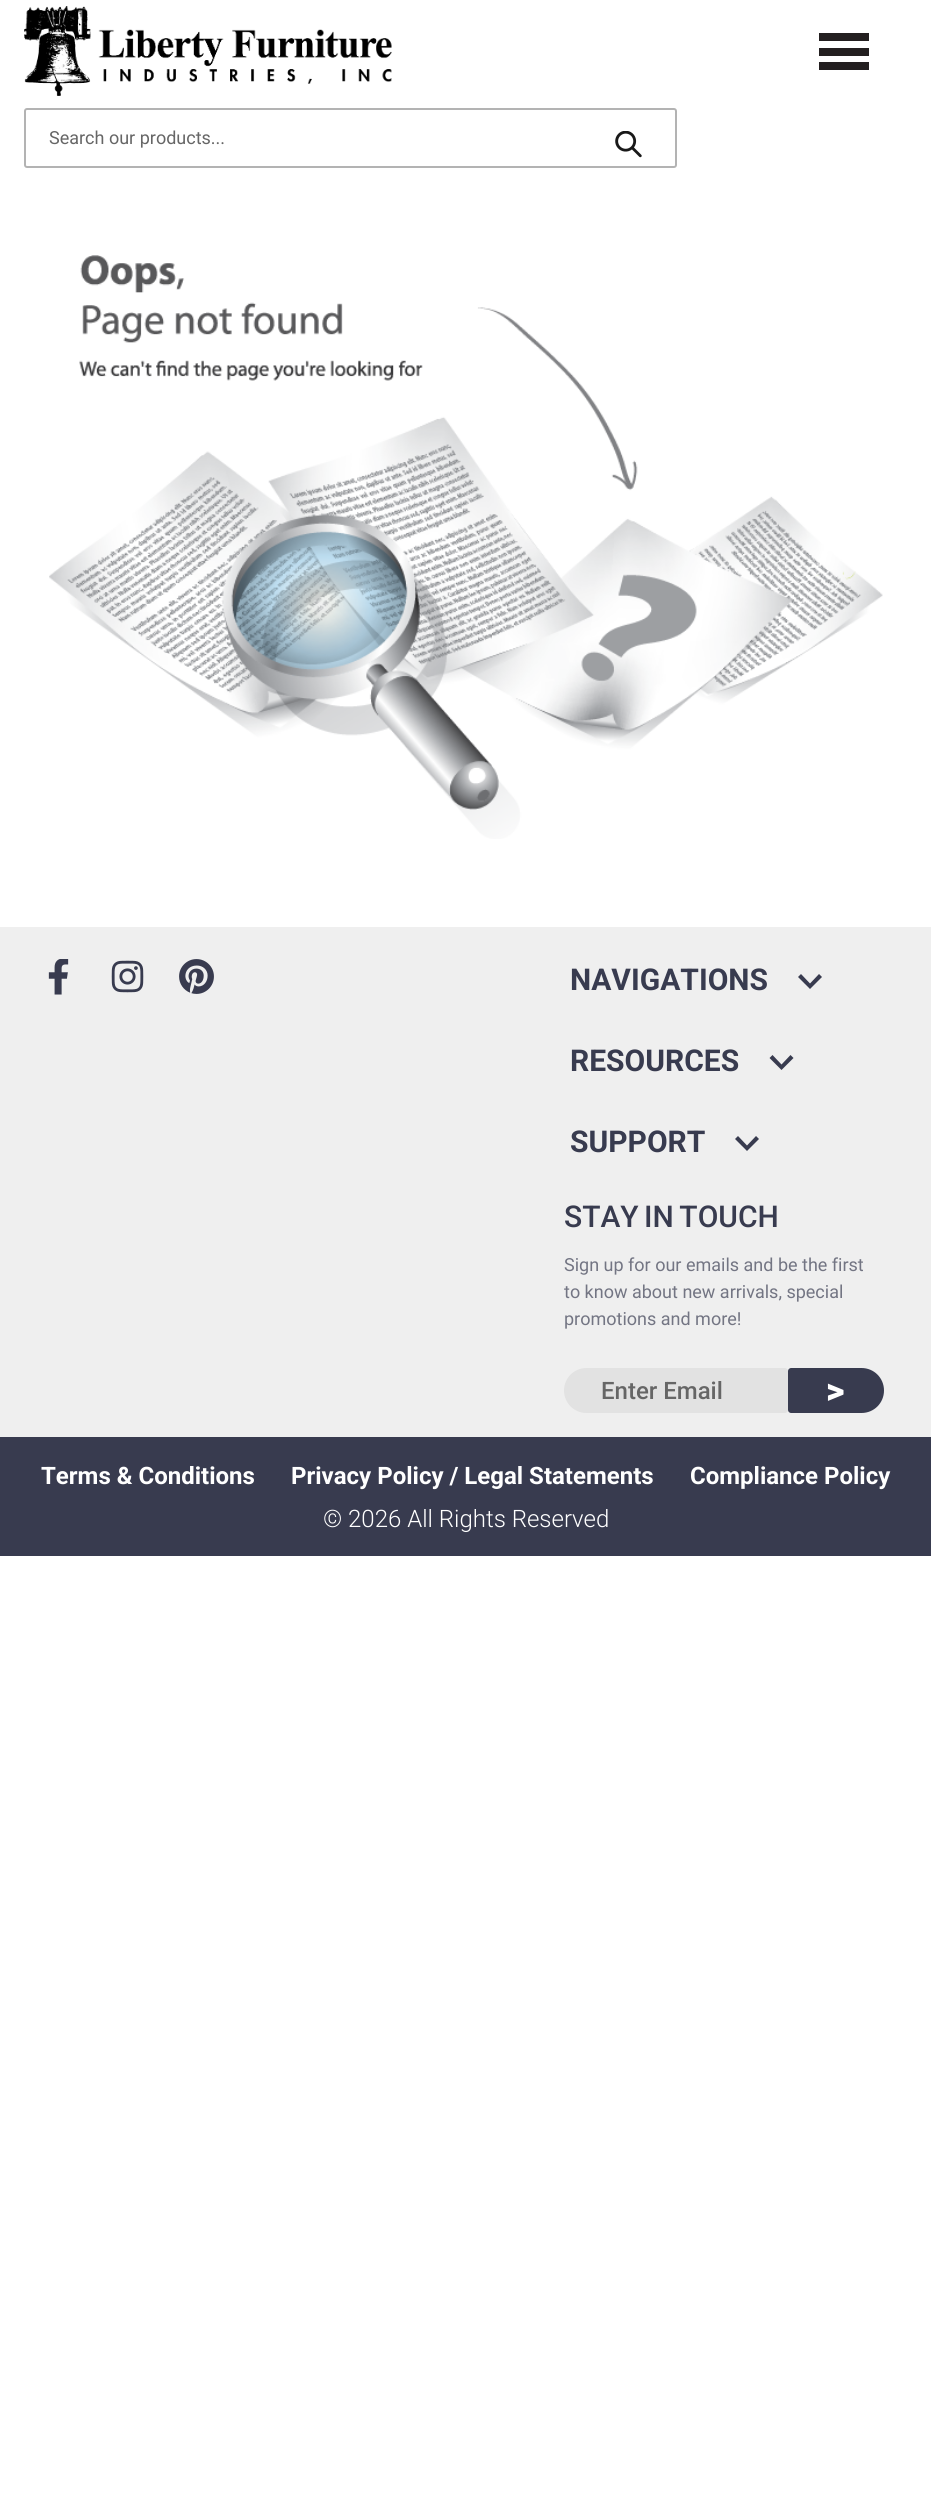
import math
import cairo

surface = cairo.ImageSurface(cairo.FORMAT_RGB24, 931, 2510)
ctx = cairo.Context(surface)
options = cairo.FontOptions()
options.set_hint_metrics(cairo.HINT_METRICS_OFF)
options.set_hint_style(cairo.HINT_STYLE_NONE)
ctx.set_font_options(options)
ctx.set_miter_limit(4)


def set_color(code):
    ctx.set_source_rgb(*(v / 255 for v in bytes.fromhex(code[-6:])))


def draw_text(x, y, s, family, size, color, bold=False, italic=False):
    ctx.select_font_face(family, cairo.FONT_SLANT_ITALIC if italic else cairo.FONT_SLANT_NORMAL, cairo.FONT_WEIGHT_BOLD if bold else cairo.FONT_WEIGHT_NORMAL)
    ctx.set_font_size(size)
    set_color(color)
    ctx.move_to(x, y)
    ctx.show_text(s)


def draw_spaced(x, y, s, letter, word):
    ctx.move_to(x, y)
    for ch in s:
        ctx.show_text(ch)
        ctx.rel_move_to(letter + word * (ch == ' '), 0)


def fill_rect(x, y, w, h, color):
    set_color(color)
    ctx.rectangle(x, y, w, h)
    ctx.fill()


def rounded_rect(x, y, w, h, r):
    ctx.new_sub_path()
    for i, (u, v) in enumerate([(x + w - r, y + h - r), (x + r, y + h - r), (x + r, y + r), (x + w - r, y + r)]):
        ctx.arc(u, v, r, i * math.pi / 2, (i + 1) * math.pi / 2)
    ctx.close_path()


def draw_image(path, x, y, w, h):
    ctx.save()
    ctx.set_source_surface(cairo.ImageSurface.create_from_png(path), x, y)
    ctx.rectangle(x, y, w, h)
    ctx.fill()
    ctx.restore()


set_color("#ffffff")
ctx.paint()
draw_image("assets/img1.png", 24, 6, 368, 90)
fill_rect(819, 33, 50, 8, "#231f20")
fill_rect(819, 48, 50, 8, "#231f20")
fill_rect(819, 62, 50, 8, "#231f20")
rounded_rect(25, 109, 651, 58, 2)
set_color("#b3b3b3")
ctx.stroke()
draw_text(49, 144, "Search our products...", "Roboto", 18, "#666666")
draw_image("assets/img2.png", 615, 131, 27, 27)
draw_image("assets/img3.png", 49, 255, 834, 584)
fill_rect(0, 927, 931, 510, "#efefef")
draw_image("assets/img4.png", 48, 959, 21, 36)
draw_image("assets/img5.png", 111, 960, 33, 33)
draw_image("assets/img6.png", 179, 959, 35, 35)
draw_text(570, 990, "NAVIGATIONS", "Roboto", 30, "#383b4f", bold=True)
ctx.new_path()
ctx.move_to(819, 974)
ctx.line_to(810, 983.5)
ctx.line_to(801, 974)
ctx.line_to(798, 977)
ctx.line_to(810, 989)
ctx.line_to(822, 977)
ctx.close_path()
ctx.fill()
draw_text(570, 1071, "RESOURCES", "Roboto", 30, "#383b4f", bold=True)
ctx.new_path()
ctx.move_to(790.5, 1055)
ctx.line_to(781.5, 1064.5)
ctx.line_to(772.5, 1055)
ctx.line_to(769.5, 1058)
ctx.line_to(781.5, 1070)
ctx.line_to(793.5, 1058)
ctx.close_path()
ctx.fill()
draw_text(570, 1152, "SUPPORT", "Roboto", 30, "#383b4f", bold=True)
ctx.new_path()
ctx.move_to(756, 1136)
ctx.line_to(747, 1145.5)
ctx.line_to(738, 1136)
ctx.line_to(735, 1139)
ctx.line_to(747, 1151)
ctx.line_to(759, 1139)
ctx.close_path()
ctx.fill()
ctx.select_font_face("Roboto Medium")
draw_spaced(564, 1227, "STAY IN TOUCH", 0, -2)
draw_text(564, 1271, "Sign up for our emails and be the first", "Roboto", 18, "#737583")
draw_text(564, 1298, "to know about new arrivals, special", "Roboto", 18, "#737583")
draw_text(564, 1325, "promotions and more!", "Roboto", 18, "#737583")
set_color("#e2e2e2")
ctx.new_path()
ctx.move_to(586.5, 1368)
ctx.line_to(785, 1368)
ctx.curve_to(786.5, 1368, 788, 1369.5, 788, 1371)
ctx.line_to(788, 1410)
ctx.curve_to(788, 1411.5, 786.5, 1413, 785, 1413)
ctx.line_to(586.5, 1413)
ctx.curve_to(574, 1413, 564, 1403, 564, 1390.5)
ctx.curve_to(564, 1378, 574, 1368, 586.5, 1368)
ctx.close_path()
ctx.fill()
draw_text(601, 1399, "Enter Email", "Roboto Medium", 24, "#666666")
set_color("#383b4f")
ctx.new_path()
ctx.move_to(791, 1368)
ctx.line_to(861.5, 1368)
ctx.curve_to(874, 1368, 884, 1378, 884, 1390.5)
ctx.curve_to(884, 1403, 874, 1413, 861.5, 1413)
ctx.line_to(791, 1413)
ctx.curve_to(789.5, 1413, 788, 1411.5, 788, 1410)
ctx.line_to(788, 1371)
ctx.curve_to(788, 1369.5, 789.5, 1368, 791, 1368)
ctx.close_path()
ctx.fill()
draw_text(826, 1403, ">", "Roboto Black", 36, "#ffffff")
fill_rect(0, 1437, 931, 119, "#383b4f")
draw_text(41, 1484, "Terms & Conditions", "Roboto", 24, "#ffffff", bold=True)
draw_text(291, 1484, "Privacy Policy / Legal Statements", "Roboto", 24, "#ffffff", bold=True)
draw_text(690, 1484, "Compliance Policy", "Roboto", 24, "#ffffff", bold=True)
draw_text(323, 1527, "© 2026 All Rights Reserved", "Roboto Light", 24, "#ffffff")
surface.write_to_png("output.png")
